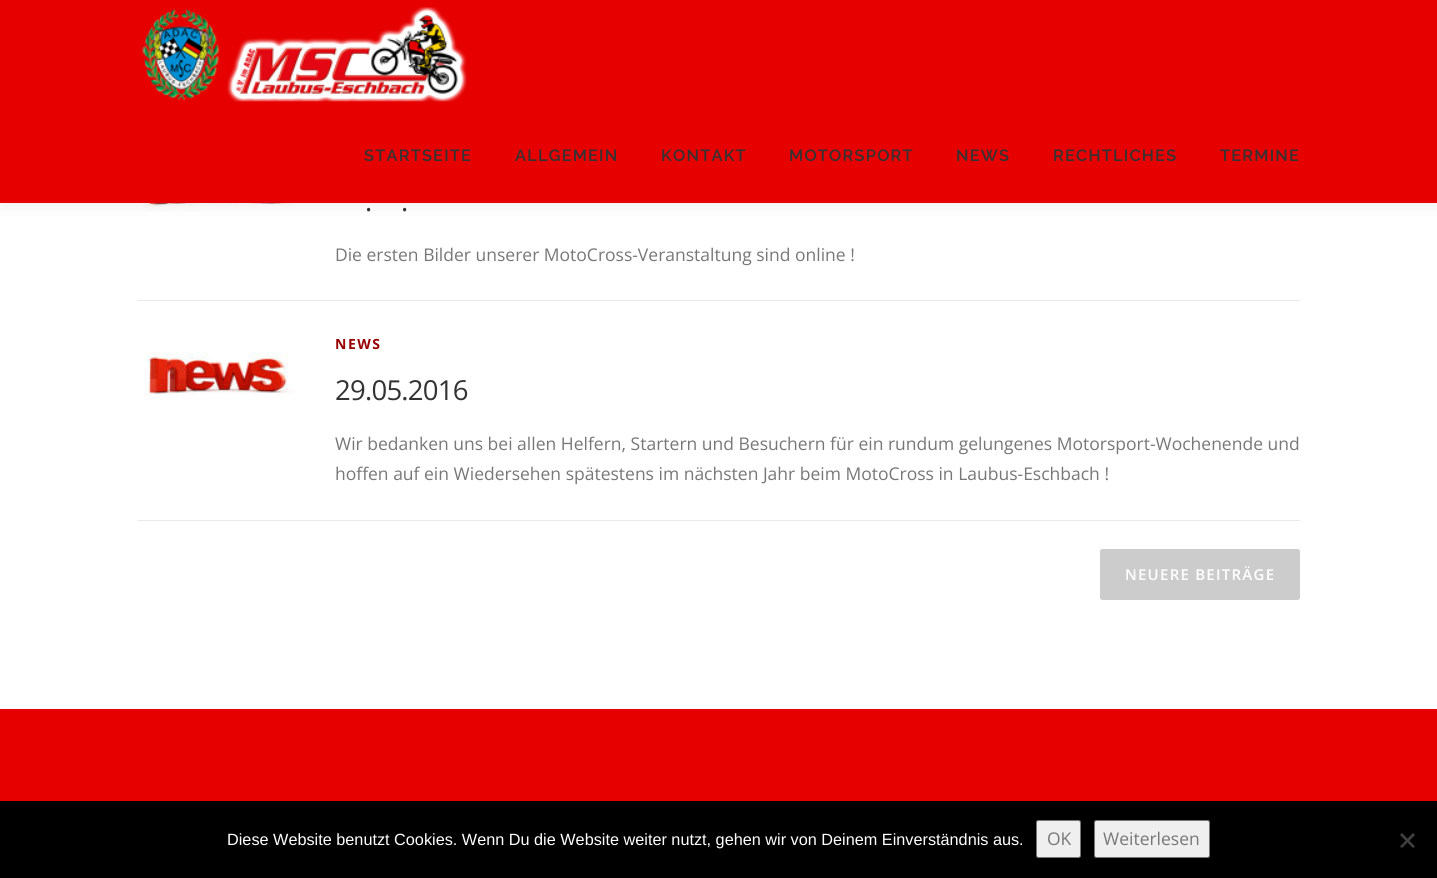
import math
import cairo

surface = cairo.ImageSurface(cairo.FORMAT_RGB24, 1437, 878)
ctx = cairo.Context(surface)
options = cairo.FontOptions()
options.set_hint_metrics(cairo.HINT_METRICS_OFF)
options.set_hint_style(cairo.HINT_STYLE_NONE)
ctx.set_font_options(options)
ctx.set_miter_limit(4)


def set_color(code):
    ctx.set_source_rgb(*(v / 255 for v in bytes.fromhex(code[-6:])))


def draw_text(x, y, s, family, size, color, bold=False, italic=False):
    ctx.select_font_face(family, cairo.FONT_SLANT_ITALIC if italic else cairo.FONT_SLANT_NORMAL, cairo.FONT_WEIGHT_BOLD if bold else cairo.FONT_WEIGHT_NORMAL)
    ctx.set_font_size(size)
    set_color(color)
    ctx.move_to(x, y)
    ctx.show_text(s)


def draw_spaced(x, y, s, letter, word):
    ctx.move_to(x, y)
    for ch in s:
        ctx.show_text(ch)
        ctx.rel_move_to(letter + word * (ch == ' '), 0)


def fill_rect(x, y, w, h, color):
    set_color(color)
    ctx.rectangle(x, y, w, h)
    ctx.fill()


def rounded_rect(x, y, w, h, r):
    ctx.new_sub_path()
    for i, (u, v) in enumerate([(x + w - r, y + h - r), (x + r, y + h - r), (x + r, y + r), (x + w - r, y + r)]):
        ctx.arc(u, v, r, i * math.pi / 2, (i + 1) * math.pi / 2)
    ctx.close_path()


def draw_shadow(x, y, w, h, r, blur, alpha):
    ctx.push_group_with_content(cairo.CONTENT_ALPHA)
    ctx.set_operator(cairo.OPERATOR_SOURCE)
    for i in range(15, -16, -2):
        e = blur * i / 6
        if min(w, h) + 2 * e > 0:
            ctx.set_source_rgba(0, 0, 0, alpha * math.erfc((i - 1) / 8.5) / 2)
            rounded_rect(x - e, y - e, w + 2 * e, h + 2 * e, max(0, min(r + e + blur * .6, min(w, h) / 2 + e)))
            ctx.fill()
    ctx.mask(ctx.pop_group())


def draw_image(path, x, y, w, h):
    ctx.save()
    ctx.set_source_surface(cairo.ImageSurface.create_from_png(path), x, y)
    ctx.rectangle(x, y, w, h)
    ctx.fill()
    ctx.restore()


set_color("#ffffff")
ctx.paint()
draw_image("assets/img2.png", 143, 203, 151, 8)
set_color("#323232")
draw_shadow(0, 6, 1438, 203, 0, 6, 0.06)
fill_rect(0, 0, 1437, 203, "#e60000")
draw_image("assets/img1.png", 142, 7, 325, 95)
ctx.select_font_face("Raleway SemiBold")
ctx.set_font_size(16.25)
set_color("#333333")
draw_spaced(364, 161, "STARTSEITE", 1.25, 0)
draw_spaced(515, 161, "ALLGEMEIN", 1.25, 0)
draw_spaced(661, 161, "KONTAKT", 1.25, 0)
draw_spaced(789, 161, "MOTORSPORT", 1.25, 0)
draw_spaced(956, 161, "NEWS", 1.25, 0)
draw_spaced(1053, 161, "RECHTLICHES", 1.25, 0)
draw_spaced(1220, 161, "TERMINE", 1.25, 0)
ctx.select_font_face("Open Sans")
ctx.set_font_size(27.5)
draw_spaced(365, 211, ".", -0.75, 0)
draw_spaced(401, 211, ".", -0.75, 0)
draw_text(335, 261, "Die ersten Bilder unserer MotoCross-Veranstaltung sind online !", "Open Sans", 17.5, "#777777")
fill_rect(138, 300, 1162, 1, "#e9e9e9")
fill_rect(138, 520, 1162, 1, "#e9e9e9")
draw_image("assets/img3.png", 143, 352, 151, 48)
ctx.select_font_face("Open Sans", cairo.FONT_SLANT_NORMAL, cairo.FONT_WEIGHT_BOLD)
ctx.set_font_size(14)
set_color("#990000")
draw_spaced(335, 349, "NEWS", 1.5, 0)
ctx.select_font_face("Open Sans")
ctx.set_font_size(27.5)
set_color("#333333")
draw_spaced(335, 400, "29.05.2016", -0.75, 0)
draw_text(335, 450, "Wir bedanken uns bei allen Helfern, Startern und Besuchern für ein rundum gelungenes Motorsport-Wochenende und", "Open Sans", 17.5, "#777777")
draw_text(335, 480, "hoffen auf ein Wiedersehen spätestens im nächsten Jahr beim MotoCross in Laubus-Eschbach !", "Open Sans", 17.5, "#777777")
set_color("#cccccc")
rounded_rect(1100, 549, 200, 51, 2.5)
ctx.fill()
ctx.select_font_face("Open Sans SemiBold")
ctx.set_font_size(15)
set_color("#ffffff")
draw_spaced(1125, 580, "NEUERE BEITRÄGE", 1.25, 0)
fill_rect(0, 709, 1437, 92, "#e60000")
fill_rect(0, 801, 1437, 77, "#000000")
draw_text(227, 845, "Diese Website benutzt Cookies. Wenn Du die Website weiter nutzt, gehen wir von Deinem Einverständnis aus.", "Liberation Sans", 16.25, "#ffffff")
set_color("#efefef")
rounded_rect(1036.5, 820.5, 44, 37, 2)
ctx.fill_preserve()
set_color("#767676")
ctx.set_line_width(1)
ctx.stroke()
draw_text(1047, 845, "OK", "Open Sans", 17.5, "#777777")
set_color("#efefef")
rounded_rect(1094.5, 820.5, 115, 37, 2)
ctx.fill_preserve()
set_color("#767676")
ctx.stroke()
draw_text(1103, 845, "Weiterlesen", "Open Sans", 17.5, "#777777")
set_color("#404040")
ctx.new_path()
ctx.move_to(1413, 833)
ctx.line_to(1415, 835)
ctx.line_to(1402, 848)
ctx.line_to(1400, 846.5)
ctx.close_path()
ctx.fill()
ctx.new_path()
ctx.move_to(1400, 835)
ctx.line_to(1402, 833)
ctx.line_to(1415, 846.5)
ctx.line_to(1413, 848)
ctx.close_path()
ctx.fill()
surface.write_to_png("output.png")
